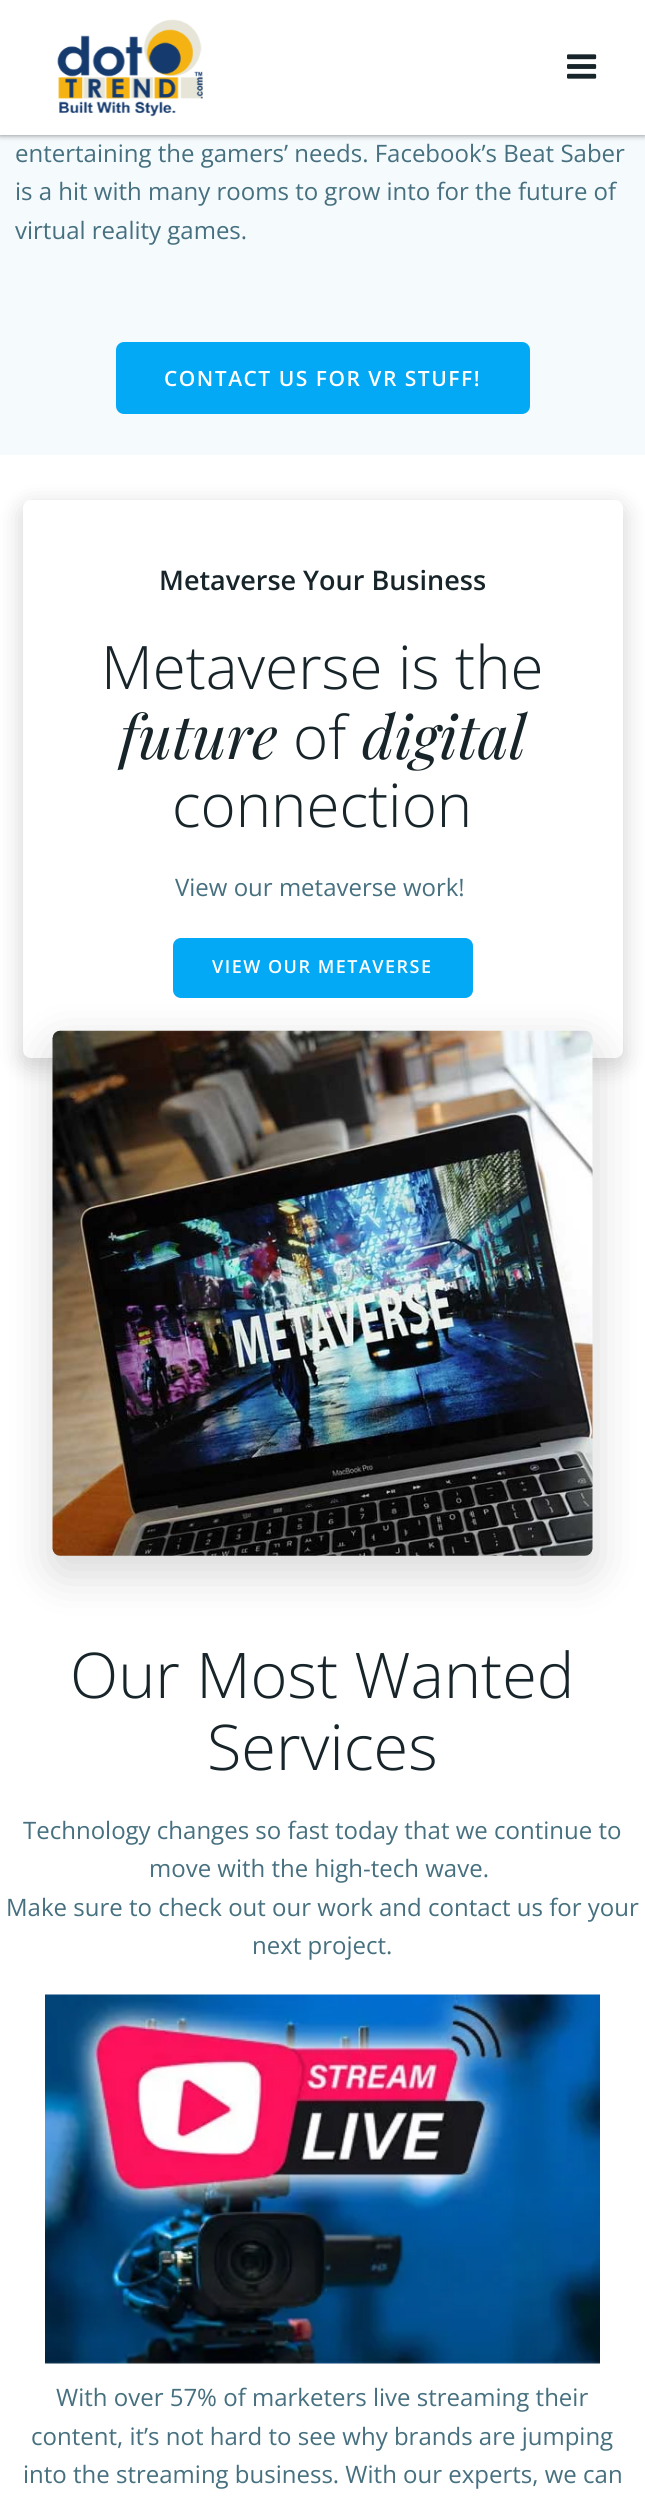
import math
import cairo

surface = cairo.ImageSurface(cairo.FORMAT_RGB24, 645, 2502)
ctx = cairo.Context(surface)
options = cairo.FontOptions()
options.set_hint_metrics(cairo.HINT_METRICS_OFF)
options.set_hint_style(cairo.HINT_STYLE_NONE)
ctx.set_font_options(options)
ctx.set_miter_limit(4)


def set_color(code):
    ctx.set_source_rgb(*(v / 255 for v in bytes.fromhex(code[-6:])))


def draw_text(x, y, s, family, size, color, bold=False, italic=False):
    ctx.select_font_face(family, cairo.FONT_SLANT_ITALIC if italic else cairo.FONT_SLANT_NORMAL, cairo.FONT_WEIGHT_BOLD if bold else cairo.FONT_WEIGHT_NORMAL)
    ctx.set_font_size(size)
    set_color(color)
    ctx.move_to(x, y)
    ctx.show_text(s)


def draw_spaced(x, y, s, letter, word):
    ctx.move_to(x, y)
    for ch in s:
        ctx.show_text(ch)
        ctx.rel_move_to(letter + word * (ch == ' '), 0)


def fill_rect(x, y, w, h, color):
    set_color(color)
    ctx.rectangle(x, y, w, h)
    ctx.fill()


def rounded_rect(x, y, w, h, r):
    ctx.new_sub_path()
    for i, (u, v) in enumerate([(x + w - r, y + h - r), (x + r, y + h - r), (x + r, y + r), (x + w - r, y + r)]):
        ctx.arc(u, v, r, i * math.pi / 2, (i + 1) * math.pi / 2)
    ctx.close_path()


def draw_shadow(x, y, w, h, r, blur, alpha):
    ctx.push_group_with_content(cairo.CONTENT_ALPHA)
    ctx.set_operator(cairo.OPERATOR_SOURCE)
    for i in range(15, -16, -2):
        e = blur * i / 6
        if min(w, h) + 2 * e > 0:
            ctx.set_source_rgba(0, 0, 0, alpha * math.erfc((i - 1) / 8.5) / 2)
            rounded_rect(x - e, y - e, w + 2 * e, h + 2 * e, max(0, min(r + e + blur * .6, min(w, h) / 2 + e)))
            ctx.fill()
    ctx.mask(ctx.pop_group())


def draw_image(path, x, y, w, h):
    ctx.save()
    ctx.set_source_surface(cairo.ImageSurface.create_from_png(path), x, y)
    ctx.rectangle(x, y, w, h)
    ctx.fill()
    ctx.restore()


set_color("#ffffff")
ctx.paint()
fill_rect(0, 135, 645, 320, "#f5fafd")
set_color("#000000")
draw_shadow(0, 0, 645, 135, 0, 3, 0.5)
fill_rect(0, 0, 645, 135, "#ffffff")
draw_image("assets/img1.png", 57, 19, 146, 98)
draw_image("assets/img2.png", 567, 54, 30, 25)
draw_text(15, 162, "entertaining the gamers’ needs. Facebook’s Beat Saber", "Open Sans", 24, "#46707f")
draw_text(15, 200, "is a hit with many rooms to grow into for the future of", "Open Sans", 24, "#46707f")
draw_text(15, 239, "virtual reality games.", "Open Sans", 24, "#46707f")
set_color("#03a9f4")
rounded_rect(117.5, 343.5, 411, 69, 6.5)
ctx.fill_preserve()
ctx.set_line_width(3)
ctx.stroke()
ctx.select_font_face("Open Sans SemiBold")
ctx.set_font_size(21)
set_color("#ffffff")
draw_spaced(164, 386, "CONTACT US FOR VR STUFF!", 1.5, 0)
set_color("#000000")
draw_shadow(20, 504, 606, 564, 11, 11, 0.15)
set_color("#ffffff")
rounded_rect(23, 500, 600, 558, 8)
ctx.fill()
draw_text(159, 590, "Metaverse Your Business", "Open Sans SemiBold", 27, "#17252a")
draw_text(101, 689, "Metaverse is the", "Open Sans Light", 60, "#17252a")
draw_text(119, 759, "future", "Playfair Display", 60, "#17252a", italic=True)
draw_text(293, 759, "of", "Open Sans Light", 60, "#17252a")
draw_text(362, 759, "digital", "Playfair Display", 60, "#17252a", italic=True)
draw_text(172, 827, "connection", "Open Sans Light", 60, "#17252a")
draw_text(175, 896, "View our metaverse work!", "Open Sans", 24, "#46707f")
set_color("#03a9f4")
rounded_rect(174.5, 939.5, 297, 57, 6.5)
ctx.fill_preserve()
ctx.stroke()
ctx.select_font_face("Open Sans SemiBold")
ctx.set_font_size(18)
set_color("#ffffff")
draw_spaced(212, 973, "VIEW OUR METAVERSE", 1.5, 0)
set_color("#000000")
draw_shadow(50, 1044, 546, 531, 11, 22.5, 0.15)
draw_image("assets/img3.png", 52, 1030, 541, 526)
draw_text(70, 1698, "Our Most Wanted", "Open Sans Light", 63, "#17252a")
draw_text(207, 1770, "Services", "Open Sans Light", 63, "#17252a")
draw_text(23, 1839, "Technology changes so fast today that we continue to", "Open Sans", 24, "#46707f")
draw_text(149, 1877, "move with the high-tech wave.", "Open Sans", 24, "#46707f")
draw_text(6, 1916, "Make sure to check out our work and contact us for your", "Open Sans", 24, "#46707f")
draw_text(252, 1954, "next project.", "Open Sans", 24, "#46707f")
draw_image("assets/img4.png", 45, 1994, 555, 370)
draw_text(56, 2406, "With over 57% of marketers live streaming their", "Open Sans", 24, "#46707f")
draw_text(31, 2445, "content, it’s not hard to see why brands are jumping", "Open Sans", 24, "#46707f")
draw_text(23, 2483, "into the streaming business. With our experts, we can", "Open Sans", 24, "#46707f")
surface.write_to_png("output.png")
